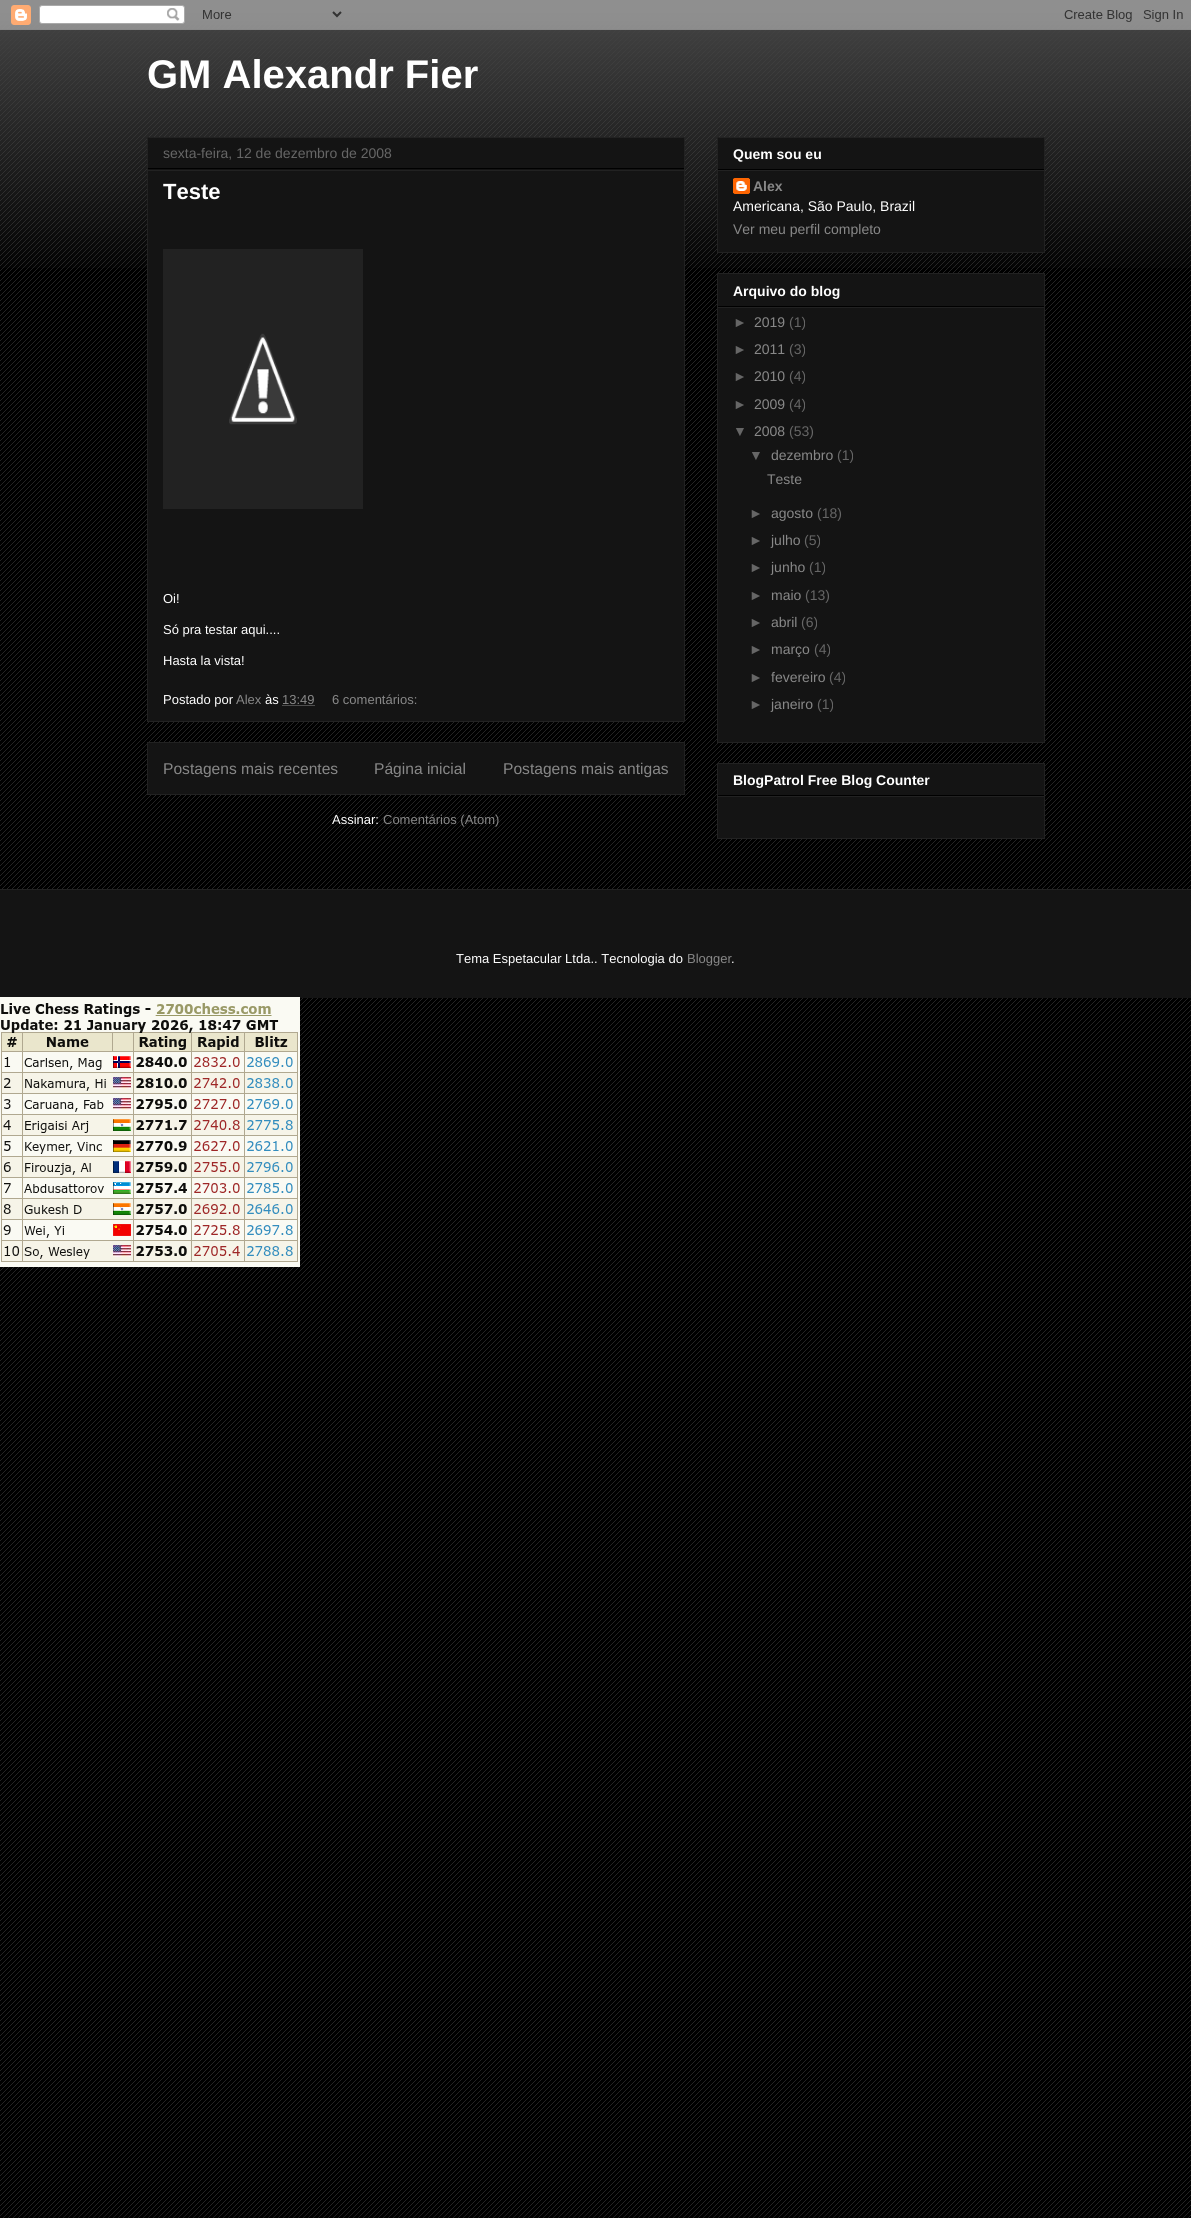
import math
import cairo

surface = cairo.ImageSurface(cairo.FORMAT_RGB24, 1191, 2218)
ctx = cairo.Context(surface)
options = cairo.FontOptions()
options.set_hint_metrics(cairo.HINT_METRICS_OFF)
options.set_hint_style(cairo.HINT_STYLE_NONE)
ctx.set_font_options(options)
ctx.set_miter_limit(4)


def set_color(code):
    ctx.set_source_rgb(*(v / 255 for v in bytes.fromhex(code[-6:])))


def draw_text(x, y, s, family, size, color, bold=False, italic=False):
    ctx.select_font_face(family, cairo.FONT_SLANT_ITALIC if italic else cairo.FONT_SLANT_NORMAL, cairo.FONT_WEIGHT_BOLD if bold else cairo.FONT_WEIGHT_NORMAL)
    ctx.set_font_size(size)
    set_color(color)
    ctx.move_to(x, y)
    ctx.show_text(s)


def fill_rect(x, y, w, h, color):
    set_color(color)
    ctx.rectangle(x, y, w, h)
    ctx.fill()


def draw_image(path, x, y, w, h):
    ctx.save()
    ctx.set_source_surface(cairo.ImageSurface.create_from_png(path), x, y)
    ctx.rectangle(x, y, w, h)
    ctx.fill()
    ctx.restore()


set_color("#000000")
ctx.paint()
draw_image("assets/img1.png", 0, 13, 1191, 2205)
draw_image("assets/img2.png", 0, 0, 1191, 268)
draw_image("assets/img3.png", 0, 0, 1191, 30)
draw_text(147, 88, "GM Alexandr Fier", "Liberation Sans", 40, "#ffffff", bold=True)
set_color("#141414")
ctx.rectangle(147.5, 137.5, 537, 584)
ctx.fill_preserve()
set_color("#222222")
ctx.set_line_width(1)
ctx.stroke()
fill_rect(148, 168, 536, 1, "#000000")
draw_text(163, 158, "sexta-feira, 12 de dezembro de 2008", "Liberation Sans", 14, "#666666")
fill_rect(148, 170, 536, 1, "#222222")
draw_text(163, 199, "Teste", "Liberation Sans", 22, "#ffffff", bold=True)
fill_rect(163, 249, 200, 260, "#222222")
draw_image("assets/img4.png", 229, 333, 68, 92)
draw_text(163, 603, "Oi!", "Liberation Sans", 13, "#ffffff")
draw_text(163, 634, "Só pra testar aqui....", "Liberation Sans", 13, "#ffffff")
draw_text(163, 665, "Hasta la vista!", "Liberation Sans", 13, "#ffffff")
draw_text(163, 704, "Postado por", "Liberation Sans", 13, "#ffffff")
draw_text(236, 704, "Alex", "Liberation Sans", 13, "#888888")
draw_text(265, 704, "às", "Liberation Sans", 13, "#ffffff")
draw_text(282, 704, "13:49", "Liberation Sans", 13, "#888888")
ctx.new_path()
ctx.move_to(282.5, 705.5)
ctx.line_to(315, 705.5)
ctx.set_dash([1, 1])
ctx.stroke()
draw_text(332, 704, "6 comentários:", "Liberation Sans", 13, "#888888")
set_color("#141414")
ctx.rectangle(147.5, 742.5, 537, 52)
ctx.fill_preserve()
set_color("#222222")
ctx.set_dash([])
ctx.stroke()
draw_text(163, 774, "Postagens mais recentes", "Liberation Sans", 15.6, "#888888")
draw_text(374, 774, "Página inicial", "Liberation Sans", 15.6, "#888888")
draw_text(503, 774, "Postagens mais antigas", "Liberation Sans", 15.6, "#888888")
draw_text(332, 824, "Assinar:", "Liberation Sans", 13, "#ffffff")
draw_text(383, 824, "Comentários (Atom)", "Liberation Sans", 13, "#888888")
set_color("#141414")
ctx.rectangle(717.5, 137.5, 327, 115)
ctx.fill_preserve()
set_color("#222222")
ctx.stroke()
fill_rect(718, 169, 326, 1, "#000000")
draw_text(733, 159, "Quem sou eu", "Liberation Sans", 14, "#ffffff", bold=True)
fill_rect(718, 170, 326, 1, "#222222")
draw_image("assets/img5.png", 733, 178, 17, 16)
draw_text(753, 191, "Alex", "Liberation Sans", 14, "#888888", bold=True)
draw_text(733, 211, "Americana, São Paulo, Brazil", "Liberation Sans", 14, "#ffffff")
draw_text(733, 234, "Ver meu perfil completo", "Liberation Sans", 14, "#888888")
set_color("#141414")
ctx.rectangle(717.5, 273.5, 327, 469)
ctx.fill_preserve()
set_color("#222222")
ctx.stroke()
fill_rect(718, 306, 326, 1, "#000000")
draw_text(733, 296, "Arquivo do blog", "Liberation Sans", 14, "#ffffff", bold=True)
fill_rect(718, 307, 326, 1, "#222222")
draw_text(733, 327, "►", "Liberation Sans", 14, "#666666")
draw_text(754, 327, "2019", "Liberation Sans", 14, "#888888")
draw_text(789, 327, "(1)", "Liberation Sans", 14, "#666666")
draw_text(733, 354, "►", "Liberation Sans", 14, "#666666")
draw_text(754, 354, "2011", "Liberation Sans", 14, "#888888")
draw_text(789, 354, "(3)", "Liberation Sans", 14, "#666666")
draw_text(733, 381, "►", "Liberation Sans", 14, "#666666")
draw_text(754, 381, "2010", "Liberation Sans", 14, "#888888")
draw_text(789, 381, "(4)", "Liberation Sans", 14, "#666666")
draw_text(733, 409, "►", "Liberation Sans", 14, "#666666")
draw_text(754, 409, "2009", "Liberation Sans", 14, "#888888")
draw_text(789, 409, "(4)", "Liberation Sans", 14, "#666666")
draw_text(733, 436, "▼", "Liberation Sans", 14, "#666666")
draw_text(754, 436, "2008", "Liberation Sans", 14, "#888888")
draw_text(789, 436, "(53)", "Liberation Sans", 14, "#666666")
draw_text(749, 460, "▼", "Liberation Sans", 14, "#666666")
draw_text(771, 460, "dezembro", "Liberation Sans", 14, "#888888")
draw_text(837, 460, "(1)", "Liberation Sans", 14, "#666666")
draw_text(767, 484, "Teste", "Liberation Sans", 14, "#888888")
draw_text(749, 518, "►", "Liberation Sans", 14, "#666666")
draw_text(771, 518, "agosto", "Liberation Sans", 14, "#888888")
draw_text(817, 518, "(18)", "Liberation Sans", 14, "#666666")
draw_text(749, 545, "►", "Liberation Sans", 14, "#666666")
draw_text(771, 545, "julho", "Liberation Sans", 14, "#888888")
draw_text(804, 545, "(5)", "Liberation Sans", 14, "#666666")
draw_text(749, 572, "►", "Liberation Sans", 14, "#666666")
draw_text(771, 572, "junho", "Liberation Sans", 14, "#888888")
draw_text(809, 572, "(1)", "Liberation Sans", 14, "#666666")
draw_text(749, 600, "►", "Liberation Sans", 14, "#666666")
draw_text(771, 600, "maio", "Liberation Sans", 14, "#888888")
draw_text(805, 600, "(13)", "Liberation Sans", 14, "#666666")
draw_text(749, 627, "►", "Liberation Sans", 14, "#666666")
draw_text(771, 627, "abril", "Liberation Sans", 14, "#888888")
draw_text(801, 627, "(6)", "Liberation Sans", 14, "#666666")
draw_text(749, 654, "►", "Liberation Sans", 14, "#666666")
draw_text(771, 654, "março", "Liberation Sans", 14, "#888888")
draw_text(814, 654, "(4)", "Liberation Sans", 14, "#666666")
draw_text(749, 682, "►", "Liberation Sans", 14, "#666666")
draw_text(771, 682, "fevereiro", "Liberation Sans", 14, "#888888")
draw_text(829, 682, "(4)", "Liberation Sans", 14, "#666666")
draw_text(749, 709, "►", "Liberation Sans", 14, "#666666")
draw_text(771, 709, "janeiro", "Liberation Sans", 14, "#888888")
draw_text(817, 709, "(1)", "Liberation Sans", 14, "#666666")
set_color("#141414")
ctx.rectangle(717.5, 763.5, 327, 75)
ctx.fill_preserve()
set_color("#222222")
ctx.stroke()
fill_rect(718, 795, 326, 1, "#000000")
draw_text(733, 785, "BlogPatrol Free Blog Counter", "Liberation Sans", 14, "#ffffff", bold=True)
fill_rect(718, 796, 326, 1, "#222222")
fill_rect(0, 890, 1191, 108, "#141414")
fill_rect(0, 889, 1191, 1, "#222222")
draw_text(456, 963, "Tema Espetacular Ltda.. Tecnologia do", "Liberation Sans", 13, "#ffffff")
draw_text(687, 963, "Blogger", "Liberation Sans", 13, "#888888")
draw_text(731, 963, ".", "Liberation Sans", 13, "#ffffff")
draw_image("assets/img6.png", 0, 997, 300, 270)
surface.write_to_png("output.png")
